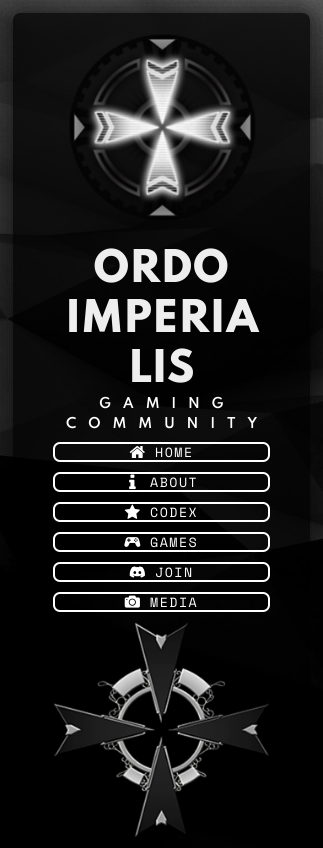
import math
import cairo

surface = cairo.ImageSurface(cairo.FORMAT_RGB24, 323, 848)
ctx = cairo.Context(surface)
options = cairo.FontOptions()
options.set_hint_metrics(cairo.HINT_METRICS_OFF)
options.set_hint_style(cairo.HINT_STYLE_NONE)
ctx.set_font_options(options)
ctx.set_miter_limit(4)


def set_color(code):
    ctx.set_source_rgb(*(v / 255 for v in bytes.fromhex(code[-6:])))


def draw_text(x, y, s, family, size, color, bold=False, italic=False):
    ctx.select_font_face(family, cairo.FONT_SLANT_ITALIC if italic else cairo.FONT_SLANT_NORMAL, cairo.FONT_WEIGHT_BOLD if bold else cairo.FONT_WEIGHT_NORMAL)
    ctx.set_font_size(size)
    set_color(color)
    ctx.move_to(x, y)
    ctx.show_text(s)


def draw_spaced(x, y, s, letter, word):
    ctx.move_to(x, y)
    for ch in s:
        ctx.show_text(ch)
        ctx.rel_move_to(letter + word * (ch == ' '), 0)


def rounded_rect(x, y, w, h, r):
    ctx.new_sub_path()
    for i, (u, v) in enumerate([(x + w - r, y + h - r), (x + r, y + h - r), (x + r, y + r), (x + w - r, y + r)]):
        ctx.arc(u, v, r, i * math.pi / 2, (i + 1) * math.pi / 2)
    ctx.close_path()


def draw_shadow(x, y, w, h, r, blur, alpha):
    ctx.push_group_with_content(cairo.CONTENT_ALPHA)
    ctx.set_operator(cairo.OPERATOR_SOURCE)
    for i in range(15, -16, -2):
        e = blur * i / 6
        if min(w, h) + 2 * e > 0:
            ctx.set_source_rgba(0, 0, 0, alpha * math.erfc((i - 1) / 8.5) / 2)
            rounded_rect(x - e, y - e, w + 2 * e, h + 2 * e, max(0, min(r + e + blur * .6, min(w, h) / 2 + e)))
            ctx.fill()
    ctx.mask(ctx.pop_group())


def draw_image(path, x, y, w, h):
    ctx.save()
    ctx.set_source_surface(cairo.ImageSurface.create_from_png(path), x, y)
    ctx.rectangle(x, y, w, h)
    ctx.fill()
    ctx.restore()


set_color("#ffffff")
ctx.paint()
draw_image("assets/img1.png", 0, 0, 323, 848)
ctx.save()
ctx.set_fill_rule(cairo.FILL_RULE_EVEN_ODD)
ctx.new_path()
ctx.move_to(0, 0)
ctx.line_to(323, 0)
ctx.line_to(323, 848)
ctx.line_to(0, 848)
ctx.close_path()
ctx.move_to(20, 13)
ctx.line_to(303, 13)
ctx.curve_to(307, 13, 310, 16, 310, 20)
ctx.line_to(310, 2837)
ctx.curve_to(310, 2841, 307, 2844, 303, 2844)
ctx.line_to(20, 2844)
ctx.curve_to(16, 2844, 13, 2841, 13, 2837)
ctx.line_to(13, 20)
ctx.curve_to(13, 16, 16, 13, 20, 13)
ctx.close_path()
ctx.clip()
set_color("#000000")
draw_shadow(13, 13, 297, 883, 7, 13.5, 0.67)
ctx.restore()
ctx.set_source_rgba(0, 0, 0, 0.73)
rounded_rect(13, 13, 297, 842, 7)
ctx.fill()
draw_image("assets/img2.png", 69, 34, 187, 186)
draw_text(93, 282, "ORDO", "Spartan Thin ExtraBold", 40, "#eeeeee")
draw_text(65, 332, "IMPERIA", "Spartan Thin ExtraBold", 40, "#eeeeee")
draw_text(128, 382, "LIS", "Spartan Thin ExtraBold", 40, "#eeeeee")
ctx.select_font_face("Spartan Thin SemiBold")
ctx.set_font_size(13.3)
set_color("#ffffff")
draw_spaced(99, 408, "GAMING", 11.75, 0)
draw_spaced(66, 428, "COMMUNITY", 11.75, 0)
rounded_rect(54, 443, 215, 18, 6)
ctx.stroke()
draw_image("assets/img3.png", 129, 446, 16, 12)
ctx.select_font_face("Space Mono")
draw_spaced(155, 457, "HOME", 1.5, 0)
rounded_rect(54, 473, 215, 18, 6)
ctx.stroke()
draw_image("assets/img4.png", 129, 474, 7, 16)
draw_spaced(150, 487, "ABOUT", 1.5, 0)
rounded_rect(54, 503, 215, 18, 6)
ctx.stroke()
draw_image("assets/img5.png", 124, 504, 16, 15)
draw_spaced(150, 517, "CODEX", 1.5, 0)
rounded_rect(54, 533, 215, 18, 6)
ctx.stroke()
draw_image("assets/img6.png", 124, 537, 17, 10)
draw_spaced(150, 547, "GAMES", 1.5, 0)
rounded_rect(54, 563, 215, 18, 6)
ctx.stroke()
draw_image("assets/img7.png", 129, 566, 16, 12)
draw_spaced(155, 577, "JOIN", 1.5, 0)
rounded_rect(54, 593, 215, 18, 6)
ctx.stroke()
draw_image("assets/img8.png", 124, 595, 16, 13)
draw_spaced(150, 607, "MEDIA", 1.5, 0)
draw_image("assets/img9.png", 53, 622, 216, 215)
surface.write_to_png("output.png")
